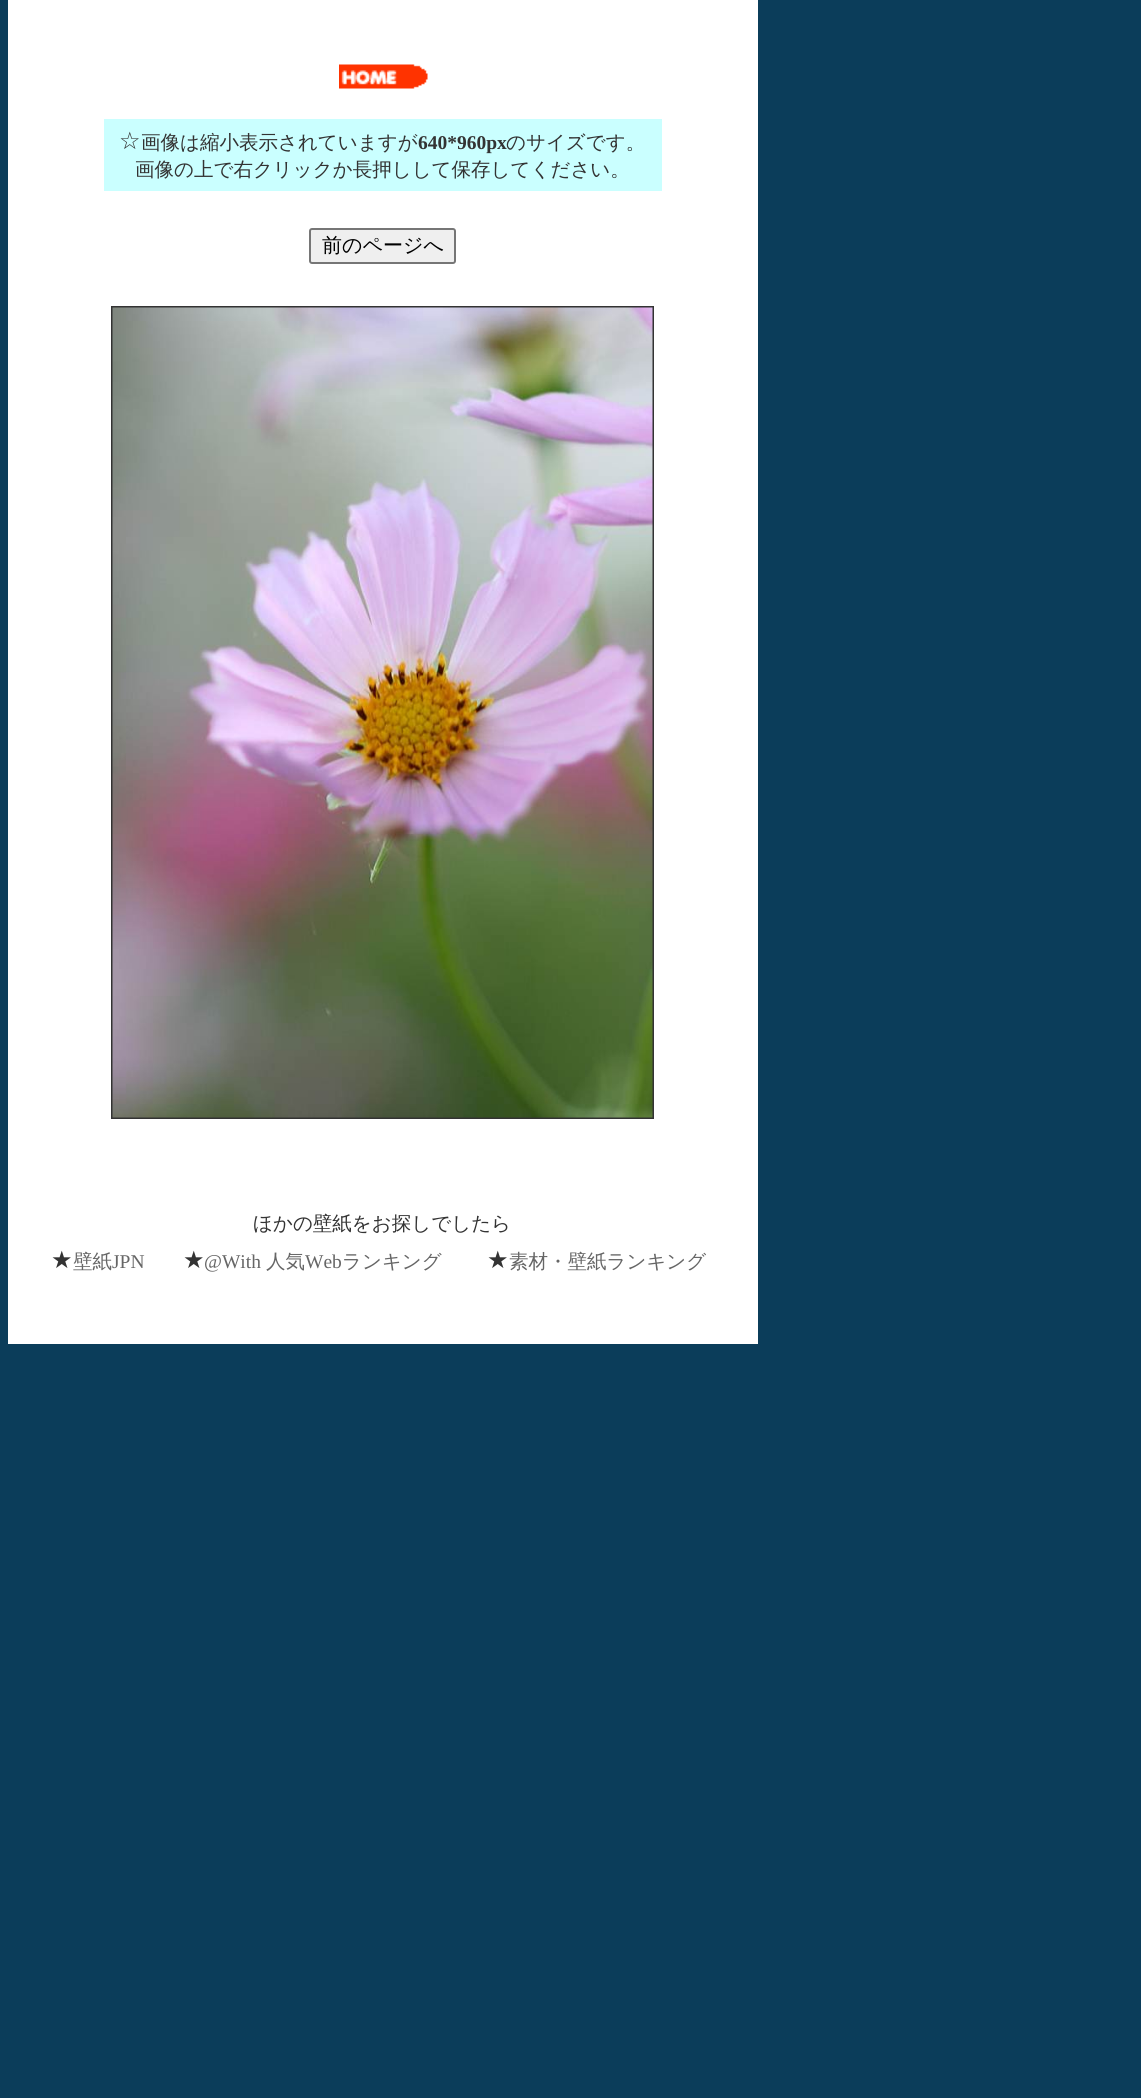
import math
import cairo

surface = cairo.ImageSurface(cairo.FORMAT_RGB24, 1141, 2098)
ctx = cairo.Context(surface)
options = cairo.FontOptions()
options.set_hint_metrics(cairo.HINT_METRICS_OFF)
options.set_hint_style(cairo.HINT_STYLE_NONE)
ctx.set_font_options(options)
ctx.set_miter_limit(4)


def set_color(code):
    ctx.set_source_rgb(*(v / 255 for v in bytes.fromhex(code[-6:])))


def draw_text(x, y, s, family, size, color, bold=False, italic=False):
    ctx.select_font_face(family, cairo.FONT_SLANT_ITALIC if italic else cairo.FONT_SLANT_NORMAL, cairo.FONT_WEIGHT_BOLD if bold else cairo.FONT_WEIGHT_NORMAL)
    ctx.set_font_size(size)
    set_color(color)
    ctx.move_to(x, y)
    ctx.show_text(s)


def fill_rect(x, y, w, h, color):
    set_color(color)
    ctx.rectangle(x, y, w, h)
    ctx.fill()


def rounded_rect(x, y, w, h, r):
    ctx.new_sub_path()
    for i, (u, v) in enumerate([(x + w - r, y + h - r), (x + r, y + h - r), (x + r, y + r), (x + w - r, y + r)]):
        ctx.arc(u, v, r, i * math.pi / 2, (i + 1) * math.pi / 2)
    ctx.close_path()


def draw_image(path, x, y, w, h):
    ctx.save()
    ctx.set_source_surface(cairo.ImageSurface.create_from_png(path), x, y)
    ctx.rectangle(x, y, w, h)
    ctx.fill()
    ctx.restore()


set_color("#0b3d5a")
ctx.paint()
fill_rect(8, 0, 750, 1344, "#ffffff")
draw_image("assets/img1.png", 339, 64, 89, 25)
fill_rect(104, 119, 558, 72, "#caffff")
draw_text(119, 149, "☆", "DejaVu Sans", 24, "#333333")
draw_text(141, 149, "画像は縮小表示されていますが", "WenQuanYi Zen Hei Medium", 19.5, "#333333")
draw_text(418, 149, "640*960px", "Liberation Serif", 19.5, "#333333", bold=True)
draw_text(506, 149, "のサイズです。", "WenQuanYi Zen Hei Medium", 19.5, "#333333")
draw_text(135, 176, "画像の上で右クリックか長押しして保存してください。", "WenQuanYi Zen Hei Medium", 19.5, "#333333")
set_color("#efefef")
rounded_rect(310, 229, 145, 34, 2)
ctx.fill_preserve()
set_color("#767676")
ctx.stroke()
draw_text(322, 252, "前のページへ", "WenQuanYi Zen Hei Medium", 20, "#000000")
ctx.rectangle(112, 307, 541, 811)
set_color("#333333")
ctx.stroke()
draw_image("assets/img2.png", 112, 307, 541, 811)
draw_text(253, 1230, "ほかの壁紙をお探しでしたら", "WenQuanYi Zen Hei Medium", 19.5, "#333333")
draw_text(51, 1268, "★", "DejaVu Sans", 24, "#333333")
draw_text(73, 1268, "壁紙", "WenQuanYi Zen Hei Medium", 19.5, "#666666")
draw_text(112, 1268, "JPN", "Liberation Serif", 19.5, "#666666")
draw_text(183, 1268, "★", "DejaVu Sans", 24, "#333333")
draw_text(204, 1268, "@With", "Liberation Serif", 19.5, "#666666")
draw_text(266, 1268, "人気", "WenQuanYi Zen Hei Medium", 19.5, "#666666")
draw_text(305, 1268, "Web", "Liberation Serif", 19.5, "#666666")
draw_text(342, 1268, "ランキング", "WenQuanYi Zen Hei Medium", 19.5, "#666666")
draw_text(487, 1268, "★", "DejaVu Sans", 24, "#333333")
draw_text(509, 1268, "素材・壁紙ランキング", "WenQuanYi Zen Hei Medium", 19.5, "#666666")
surface.write_to_png("output.png")
